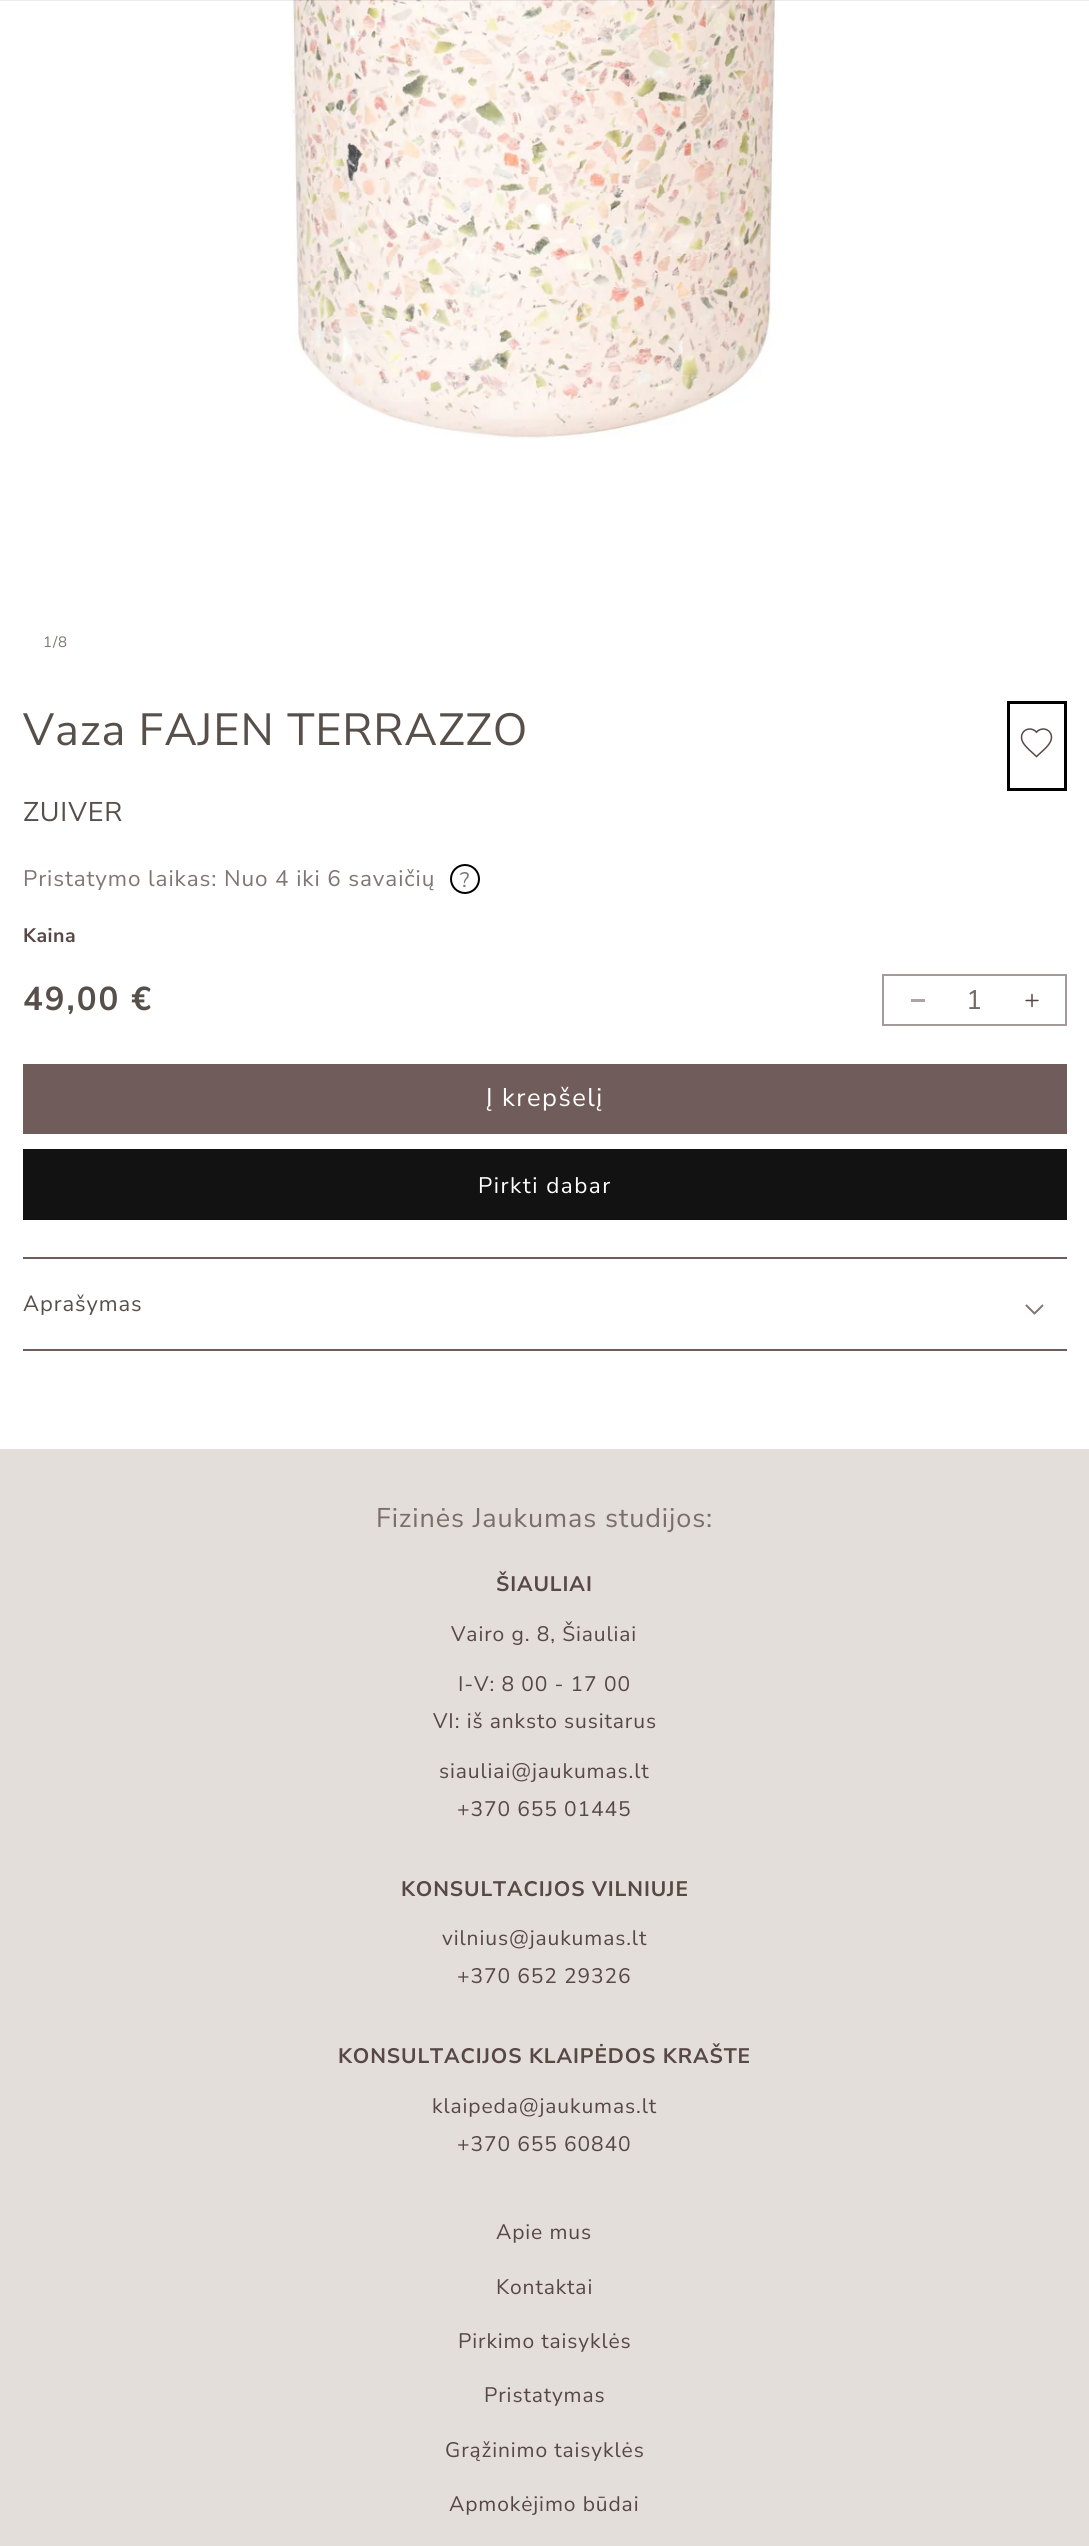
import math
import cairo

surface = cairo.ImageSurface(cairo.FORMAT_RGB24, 1089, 2546)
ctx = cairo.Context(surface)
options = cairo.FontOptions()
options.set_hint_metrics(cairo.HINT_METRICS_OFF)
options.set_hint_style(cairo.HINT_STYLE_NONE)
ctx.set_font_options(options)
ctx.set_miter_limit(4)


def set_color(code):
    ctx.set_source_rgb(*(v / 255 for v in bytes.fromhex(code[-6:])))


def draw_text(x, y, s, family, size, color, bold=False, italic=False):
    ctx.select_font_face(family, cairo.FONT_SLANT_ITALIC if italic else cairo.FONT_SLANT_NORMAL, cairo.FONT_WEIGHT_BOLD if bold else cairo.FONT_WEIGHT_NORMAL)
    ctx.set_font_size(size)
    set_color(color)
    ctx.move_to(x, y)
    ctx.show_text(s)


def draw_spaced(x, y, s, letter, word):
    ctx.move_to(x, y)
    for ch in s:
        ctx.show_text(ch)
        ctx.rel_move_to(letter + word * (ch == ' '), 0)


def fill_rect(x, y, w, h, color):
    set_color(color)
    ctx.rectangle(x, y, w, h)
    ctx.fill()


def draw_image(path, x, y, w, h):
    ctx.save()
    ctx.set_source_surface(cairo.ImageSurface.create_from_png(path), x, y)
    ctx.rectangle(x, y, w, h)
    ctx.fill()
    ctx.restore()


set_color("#ffffff")
ctx.paint()
draw_image("assets/img1.png", 291, 0, 486, 439)
ctx.set_source_rgba(0.071, 0.071, 0.071, 0.08)
ctx.rectangle(0, 0, 1089, 1)
ctx.fill()
ctx.select_font_face("Nunito Sans")
ctx.set_font_size(15)
set_color("#817674")
draw_spaced(43, 647, "1", 1, 0)
ctx.select_font_face("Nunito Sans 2")
draw_spaced(53, 647, "/", 1, 0)
ctx.select_font_face("Nunito Sans")
draw_spaced(58, 647, "8", 1, 0)
ctx.set_font_size(45)
set_color("#574f4a")
draw_spaced(23, 745, "Vaza FAJEN TERRAZZO", 0.9, 0)
ctx.rectangle(1008.5, 702.5, 57, 87)
set_color("#000000")
ctx.set_line_width(3)
ctx.stroke()
draw_image("assets/img2.png", 1020, 728, 33, 30)
ctx.set_font_size(27)
set_color("#574f4a")
draw_spaced(23, 821, "ZUIVER", 0.9, 0)
ctx.set_font_size(22.5)
set_color("#817674")
draw_spaced(23, 886, "Pristatymo laikas: Nuo 4 iki 6 savaičių", 0.9, 0)
ctx.new_path()
ctx.arc(465, 879, 14, 0, 2 * math.pi)
set_color("#000000")
ctx.set_line_width(2)
ctx.stroke()
ctx.set_font_size(21)
set_color("#817674")
draw_spaced(460, 887, "?", 0.9, 0)
ctx.select_font_face("Nunito Sans", cairo.FONT_SLANT_NORMAL, cairo.FONT_WEIGHT_BOLD)
ctx.set_font_size(19.5)
set_color("#574845")
draw_spaced(23, 942, "Kaina", 0.5, 0)
ctx.set_font_size(33)
set_color("#574f4a")
draw_spaced(23, 1010, "49,00 €", 2, 0)
fill_rect(911, 999, 14, 3, "#aba4a2")
draw_image("assets/img3.png", 1025, 993, 14, 15)
ctx.rectangle(883, 975, 183, 50)
set_color("#a39a99")
ctx.stroke()
draw_text(966, 1009, "1", "Nunito Sans", 27, "#706965")
fill_rect(23, 1064, 1044, 70, "#705d5b")
ctx.set_font_size(25.5)
set_color("#ffffff")
draw_spaced(486, 1106, "Į krepšelį", 1.5, 0)
fill_rect(23, 1149, 1044, 71, "#121212")
ctx.set_font_size(22.5)
set_color("#ffffff")
draw_spaced(478, 1193, "Pirkti dabar", 1.5, 0)
fill_rect(23, 1257, 1044, 2, "#705d5b")
fill_rect(23, 1349, 1044, 2, "#705d5b")
ctx.set_font_size(22)
set_color("#574f4a")
draw_spaced(23, 1311, "Aprašymas", 0.9, 0)
draw_image("assets/img4.png", 1025, 1304, 19, 11)
fill_rect(0, 1449, 1089, 1097, "#e3deda")
ctx.set_font_size(27)
set_color("#7a6e6a")
draw_spaced(376, 1527, "Fizinės Jaukumas studijos:", 0.9, 0)
ctx.select_font_face("Nunito Sans", cairo.FONT_SLANT_NORMAL, cairo.FONT_WEIGHT_BOLD)
ctx.set_font_size(21)
set_color("#574845")
draw_spaced(496, 1591, "ŠIAULIAI", 0.9, 0)
ctx.select_font_face("Nunito Sans")
draw_spaced(451, 1641, "Vairo g. 8, Šiauliai", 0.9, 0)
draw_spaced(458, 1691, "I-V: 8 00 - 17 00", 0.9, 0)
draw_spaced(433, 1728, "VI: iš anksto susitarus", 0.9, 0)
draw_spaced(439, 1778, "siauliai@jaukumas.lt", 0.9, 0)
draw_spaced(457, 1816, "+370 655 01445", 0.9, 0)
ctx.select_font_face("Nunito Sans", cairo.FONT_SLANT_NORMAL, cairo.FONT_WEIGHT_BOLD)
draw_spaced(401, 1896, "KONSULTACIJOS VILNIUJE", 0.9, 0)
ctx.select_font_face("Nunito Sans")
draw_spaced(442, 1945, "vilnius@jaukumas.lt", 0.9, 0)
draw_spaced(457, 1983, "+370 652 29326", 0.9, 0)
ctx.select_font_face("Nunito Sans", cairo.FONT_SLANT_NORMAL, cairo.FONT_WEIGHT_BOLD)
draw_spaced(338, 2063, "KONSULTACIJOS KLAIPĖDOS KRAŠTE", 0.9, 0)
ctx.select_font_face("Nunito Sans")
draw_spaced(432, 2113, "klaipeda@jaukumas.lt", 0.9, 0)
draw_spaced(457, 2151, "+370 655 60840", 0.9, 0)
draw_spaced(496, 2239, "Apie mus", 0.9, 0)
draw_spaced(496, 2294, "Kontaktai", 0.9, 0)
draw_spaced(458, 2348, "Pirkimo taisyklės", 0.9, 0)
draw_spaced(484, 2402, "Pristatymas", 0.9, 0)
draw_spaced(445, 2457, "Grąžinimo taisyklės", 0.9, 0)
draw_spaced(449, 2511, "Apmokėjimo būdai", 0.9, 0)
surface.write_to_png("output.png")
